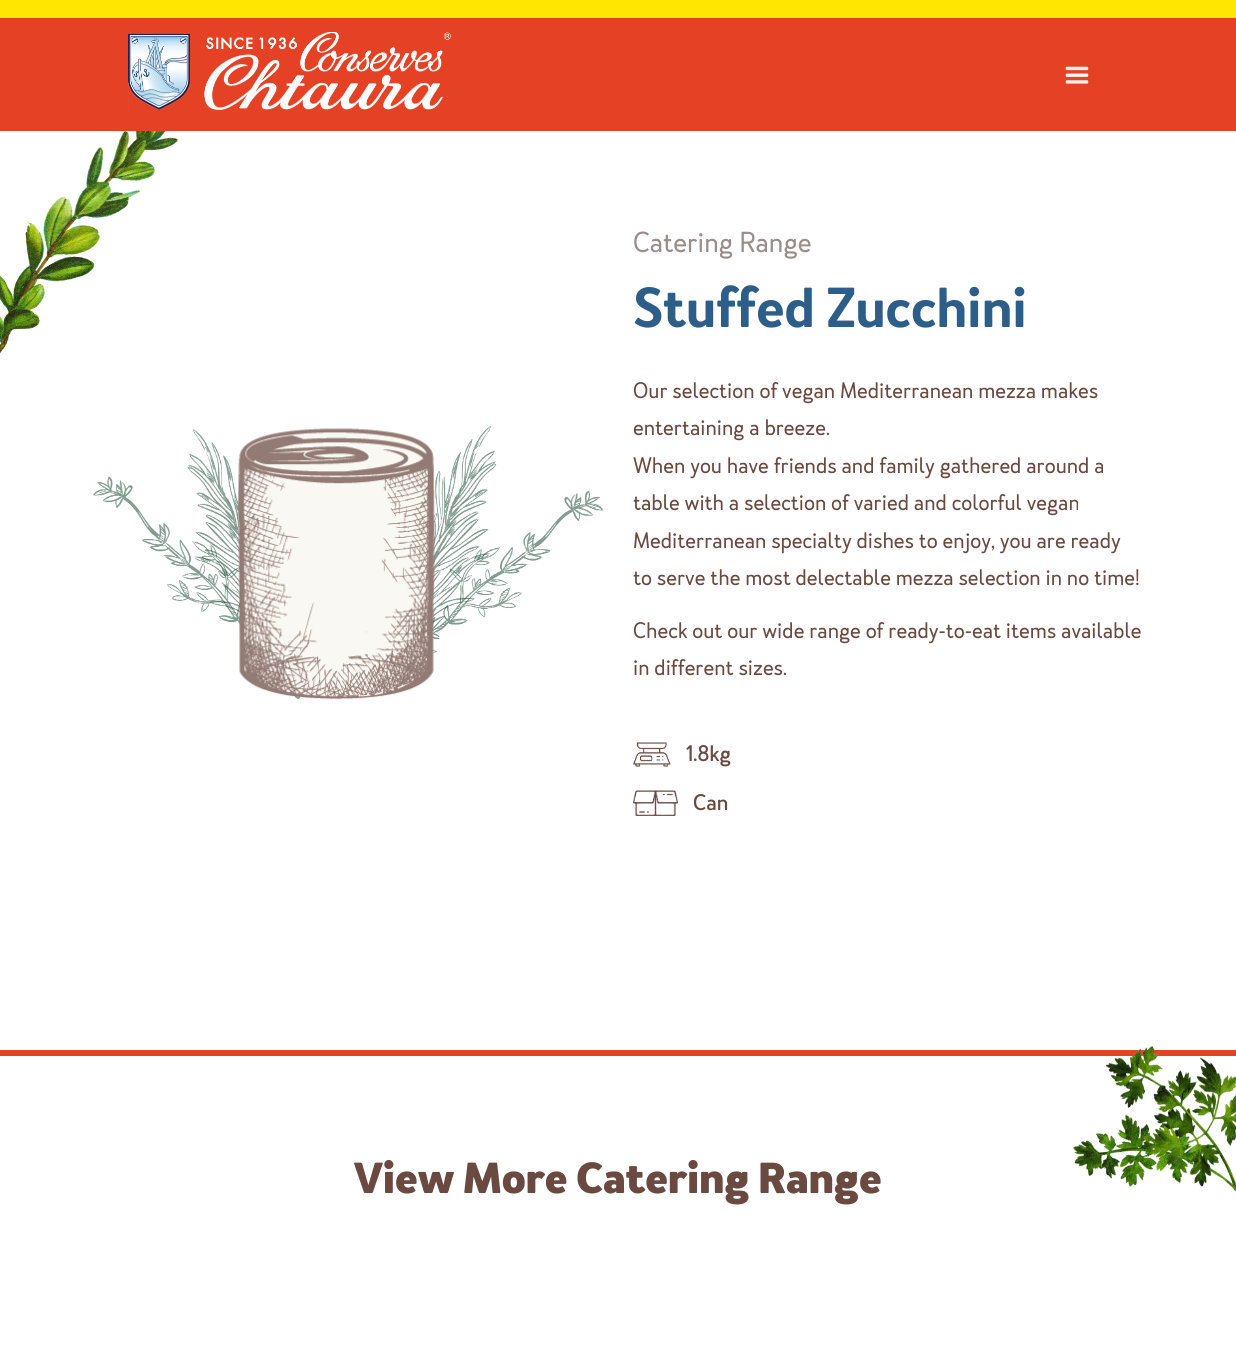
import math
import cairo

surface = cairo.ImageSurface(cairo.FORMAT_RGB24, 1236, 1371)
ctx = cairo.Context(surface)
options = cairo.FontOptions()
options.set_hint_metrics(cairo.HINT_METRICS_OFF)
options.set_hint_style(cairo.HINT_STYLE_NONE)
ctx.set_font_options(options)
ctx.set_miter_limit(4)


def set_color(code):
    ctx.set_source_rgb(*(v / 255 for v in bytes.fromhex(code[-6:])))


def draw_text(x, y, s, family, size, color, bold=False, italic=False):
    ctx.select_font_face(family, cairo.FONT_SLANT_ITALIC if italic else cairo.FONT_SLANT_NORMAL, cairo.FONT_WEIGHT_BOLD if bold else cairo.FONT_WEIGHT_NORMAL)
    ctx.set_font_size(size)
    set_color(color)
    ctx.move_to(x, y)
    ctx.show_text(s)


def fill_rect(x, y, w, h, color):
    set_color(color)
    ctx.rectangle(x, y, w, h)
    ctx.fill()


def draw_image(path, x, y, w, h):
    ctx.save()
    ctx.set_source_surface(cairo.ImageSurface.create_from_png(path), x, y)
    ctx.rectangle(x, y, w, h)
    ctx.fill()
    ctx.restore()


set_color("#ffffff")
ctx.paint()
fill_rect(0, 18, 1236, 113, "#e54125")
fill_rect(0, 0, 1236, 18, "#ffe701")
draw_image("assets/img1.png", 128, 32, 323, 78)
draw_image("assets/img2.png", 1065, 66, 24, 18)
draw_image("assets/img3.png", 0, 131, 178, 223)
draw_image("assets/img4.png", 93, 426, 510, 273)
draw_image("assets/img5.png", 238, 427, 197, 273)
draw_text(633, 252, "Catering Range", "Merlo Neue", 27, "#998e8a")
draw_text(633, 327, "Stuffed Zucchini", "Merlo Neue SemiBold", 52.5, "#2d5e8a")
draw_text(633, 398, "Our selection of vegan Mediterranean mezza makes", "Merlo Neue", 21, "#694940")
draw_text(633, 435, "entertaining a breeze.", "Merlo Neue", 21, "#694940")
draw_text(633, 473, "When you have friends and family gathered around a", "Merlo Neue", 21, "#694940")
draw_text(633, 510, "table with a selection of varied and colorful vegan", "Merlo Neue", 21, "#694940")
draw_text(633, 548, "Mediterranean specialty dishes to enjoy, you are ready", "Merlo Neue", 21, "#694940")
draw_text(633, 585, "to serve the most delectable mezza selection in no time!", "Merlo Neue", 21, "#694940")
draw_text(633, 638, "Check out our wide range of ready-to-eat items available", "Merlo Neue", 21, "#694940")
draw_text(633, 675, "in different sizes.", "Merlo Neue", 21, "#694940")
draw_image("assets/img6.png", 633, 742, 38, 25)
draw_text(686, 761, "1.8kg", "Merlo Neue Medium", 21, "#694940")
draw_image("assets/img7.png", 633, 790, 45, 26)
draw_text(693, 810, "Can", "Merlo Neue Medium", 21, "#694940")
fill_rect(0, 1050, 1236, 6, "#e54125")
draw_text(354, 1193, "View More Catering Range", "Merlo Neue", 40.5, "#694940", bold=True)
draw_image("assets/img8.png", 1073, 1046, 163, 146)
surface.write_to_png("output.png")
